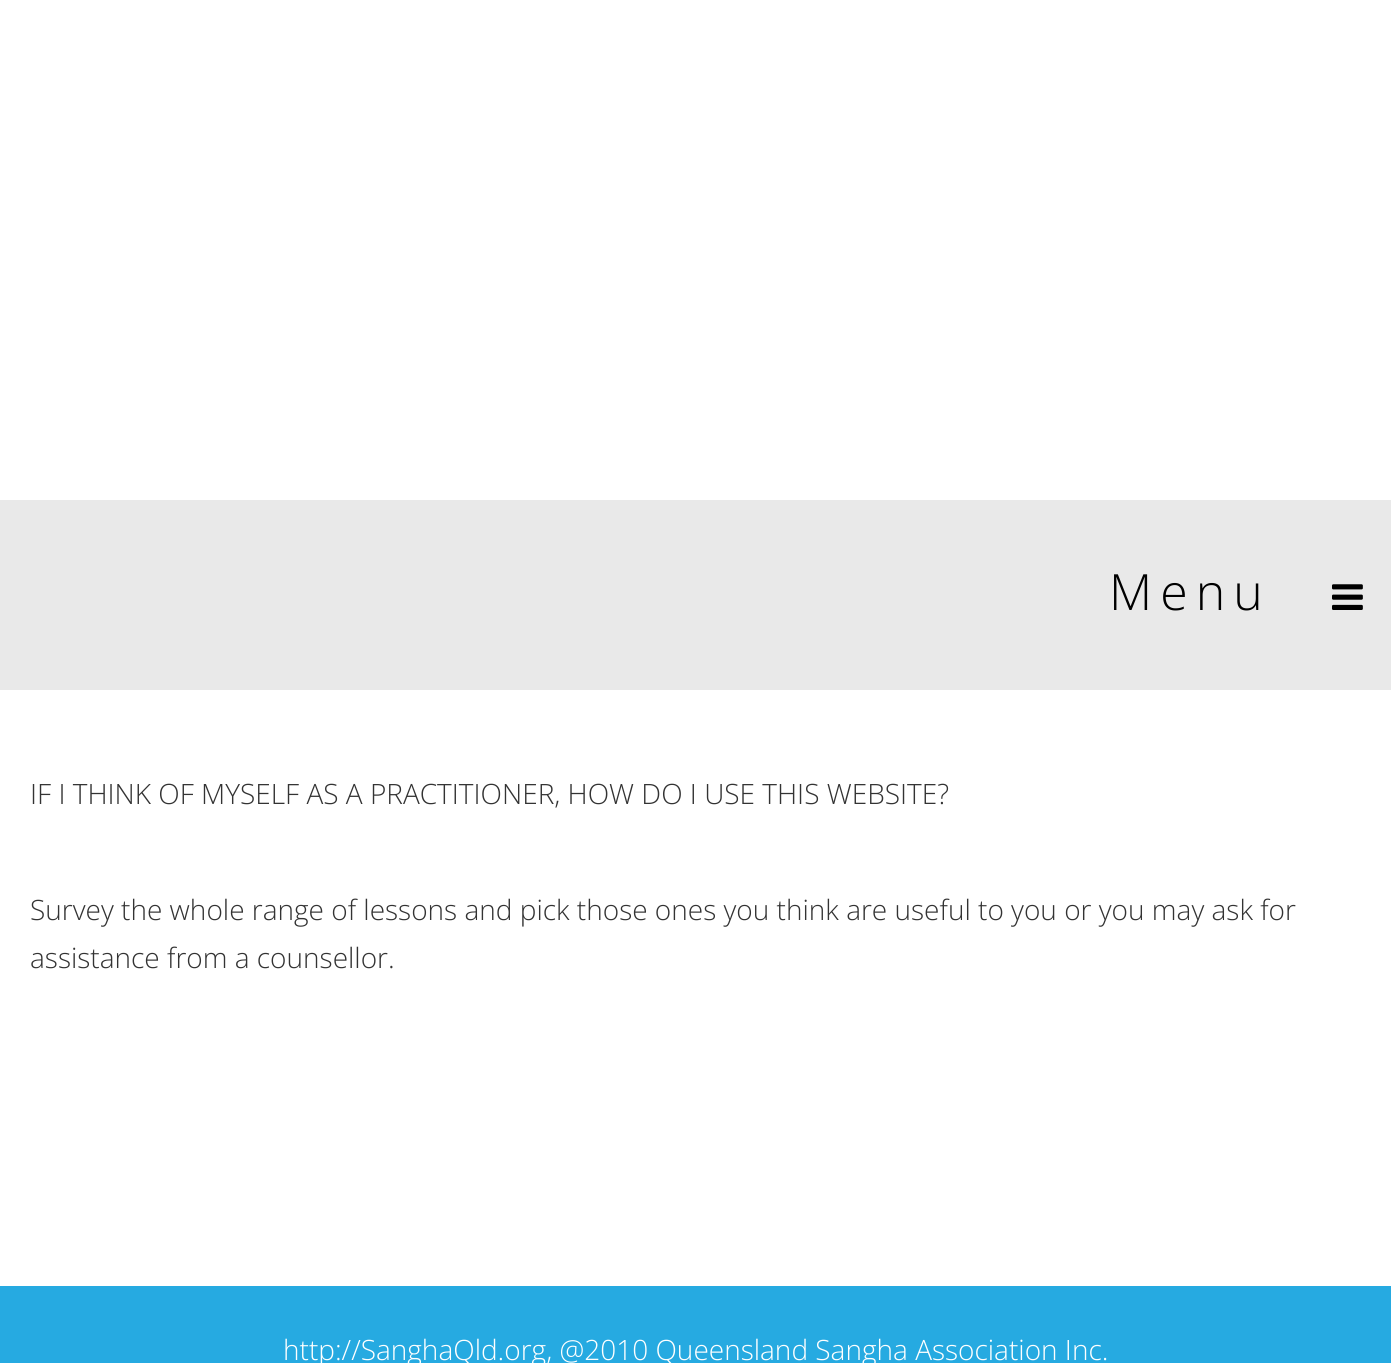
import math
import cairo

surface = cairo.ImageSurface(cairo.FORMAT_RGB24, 1391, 1363)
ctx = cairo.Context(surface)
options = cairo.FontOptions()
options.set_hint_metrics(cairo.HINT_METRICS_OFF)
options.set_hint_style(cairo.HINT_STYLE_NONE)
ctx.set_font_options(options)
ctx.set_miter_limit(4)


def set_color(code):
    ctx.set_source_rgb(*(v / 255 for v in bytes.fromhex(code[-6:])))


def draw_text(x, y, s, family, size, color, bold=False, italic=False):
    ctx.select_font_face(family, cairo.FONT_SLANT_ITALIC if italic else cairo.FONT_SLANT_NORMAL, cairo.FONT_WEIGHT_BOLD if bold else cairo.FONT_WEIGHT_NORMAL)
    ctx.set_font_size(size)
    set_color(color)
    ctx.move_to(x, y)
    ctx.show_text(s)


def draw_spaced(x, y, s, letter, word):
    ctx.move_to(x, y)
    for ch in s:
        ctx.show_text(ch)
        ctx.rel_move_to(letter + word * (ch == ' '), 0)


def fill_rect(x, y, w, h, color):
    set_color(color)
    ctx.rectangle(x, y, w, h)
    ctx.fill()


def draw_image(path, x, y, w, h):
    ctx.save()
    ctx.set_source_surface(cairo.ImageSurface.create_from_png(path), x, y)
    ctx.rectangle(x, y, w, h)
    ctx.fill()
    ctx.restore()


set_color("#ffffff")
ctx.paint()
fill_rect(0, 500, 1391, 190, "#e9e9e9")
ctx.select_font_face("Open Sans Light")
ctx.set_font_size(50)
set_color("#000000")
draw_spaced(1109, 610, "Menu", 8, 0)
draw_image("assets/img1.png", 1332, 584, 31, 26)
draw_text(30, 804, "IF I THINK OF MYSELF AS A PRACTITIONER, HOW DO I USE THIS WEBSITE?", "Open Sans Light", 28, "#333333")
draw_text(30, 920, "Survey the whole range of lessons and pick those ones you think are useful to you or you may ask for", "Open Sans Light", 28, "#333333")
draw_text(30, 968, "assistance from a counsellor.", "Open Sans Light", 28, "#333333")
fill_rect(0, 1286, 1391, 77, "#26aae1")
draw_text(283, 1360, "http://SanghaQld.org, @2010 Queensland Sangha Association Inc.", "Open Sans Light", 28, "#ffffff")
surface.write_to_png("output.png")
